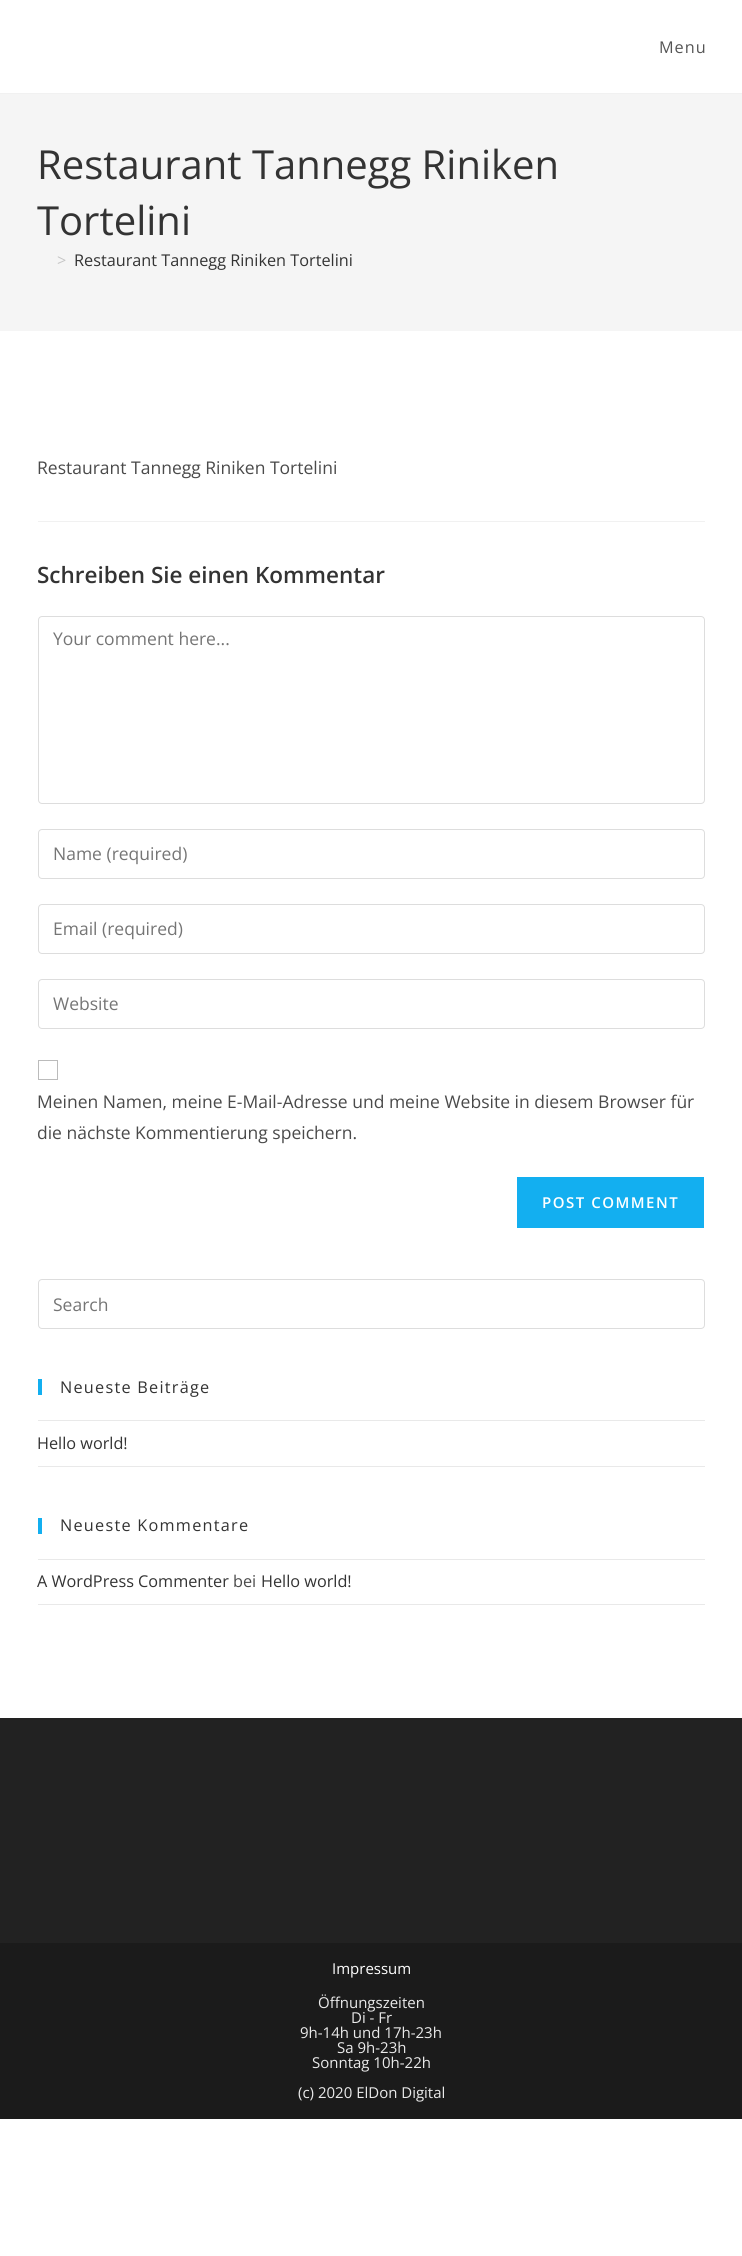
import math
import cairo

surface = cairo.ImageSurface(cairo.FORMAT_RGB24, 742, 2256)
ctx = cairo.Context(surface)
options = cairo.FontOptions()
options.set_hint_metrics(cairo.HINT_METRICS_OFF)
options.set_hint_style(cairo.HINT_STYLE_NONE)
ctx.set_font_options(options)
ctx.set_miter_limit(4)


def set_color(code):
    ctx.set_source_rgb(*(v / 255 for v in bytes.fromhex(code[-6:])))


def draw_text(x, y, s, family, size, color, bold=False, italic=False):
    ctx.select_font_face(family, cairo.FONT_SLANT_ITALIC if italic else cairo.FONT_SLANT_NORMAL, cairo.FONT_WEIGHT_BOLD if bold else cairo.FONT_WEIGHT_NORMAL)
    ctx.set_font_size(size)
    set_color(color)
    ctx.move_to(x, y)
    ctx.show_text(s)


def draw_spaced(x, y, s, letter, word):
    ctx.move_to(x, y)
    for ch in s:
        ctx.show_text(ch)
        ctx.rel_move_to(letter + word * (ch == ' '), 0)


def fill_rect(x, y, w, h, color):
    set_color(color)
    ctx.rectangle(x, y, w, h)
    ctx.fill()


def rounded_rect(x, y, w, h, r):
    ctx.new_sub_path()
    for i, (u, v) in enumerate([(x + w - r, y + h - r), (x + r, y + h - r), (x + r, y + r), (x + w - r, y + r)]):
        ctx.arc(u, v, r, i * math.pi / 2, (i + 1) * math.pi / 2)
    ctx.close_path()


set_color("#ffffff")
ctx.paint()
fill_rect(0, 93, 742, 1, "#f1f1f1")
ctx.select_font_face("Open Sans")
ctx.set_font_size(16.25)
set_color("#555555")
draw_spaced(659, 53, "Menu", 1, 0)
fill_rect(0, 94, 742, 237, "#f5f5f5")
draw_text(37, 179, "Restaurant Tannegg Riniken", "Open Sans", 40, "#333333")
draw_text(37, 235, "Tortelini", "Open Sans", 40, "#333333")
draw_text(57, 266, ">", "Open Sans", 16.25, "#c6c6c6")
draw_text(74, 266, "Restaurant Tannegg Riniken Tortelini", "Open Sans", 16.25, "#333333")
draw_text(37, 474, "Restaurant Tannegg Riniken Tortelini", "Open Sans", 17.5, "#4a4a4a")
fill_rect(38, 521, 667, 1, "#f1f1f1")
draw_text(37, 583, "Schreiben Sie einen Kommentar", "Open Sans SemiBold", 22.5, "#333333")
rounded_rect(38.5, 616.5, 666, 187, 3.5)
set_color("#dddddd")
ctx.set_line_width(1)
ctx.stroke()
draw_text(53, 645, "Your comment here...", "Open Sans", 17.5, "#757575")
rounded_rect(38.5, 829.5, 666, 49, 3.5)
set_color("#dddddd")
ctx.stroke()
draw_text(53, 860, "Name (required)", "Open Sans", 17.5, "#757575")
rounded_rect(38.5, 904.5, 666, 49, 3.5)
set_color("#dddddd")
ctx.stroke()
draw_text(53, 935, "Email (required)", "Open Sans", 17.5, "#757575")
rounded_rect(38.5, 979.5, 666, 49, 3.5)
set_color("#dddddd")
ctx.stroke()
draw_text(53, 1010, "Website", "Open Sans", 17.5, "#757575")
ctx.rectangle(38.5, 1060.5, 19, 19)
set_color("#bbbbbb")
ctx.stroke()
draw_text(37, 1108, "Meinen Namen, meine E-Mail-Adresse und meine Website in diesem Browser für", "Open Sans", 17.5, "#4a4a4a")
draw_text(37, 1139, "die nächste Kommentierung speichern.", "Open Sans", 17.5, "#4a4a4a")
fill_rect(517, 1177, 187, 51, "#13aff0")
ctx.select_font_face("Open Sans SemiBold")
ctx.set_font_size(15)
set_color("#ffffff")
draw_spaced(542, 1208, "POST COMMENT", 1.5, 0)
rounded_rect(38.5, 1279.5, 666, 49, 3.5)
set_color("#dddddd")
ctx.stroke()
draw_text(53, 1311, "Search", "Open Sans", 17.5, "#757575")
fill_rect(38, 1379, 4, 16, "#13aff0")
ctx.set_font_size(16.25)
set_color("#333333")
draw_spaced(60, 1393, "Neueste Beiträge", 1.25, 0)
fill_rect(38, 1420, 667, 1, "#e9e9e9")
fill_rect(38, 1466, 667, 1, "#e9e9e9")
draw_text(37, 1449, "Hello world!", "Open Sans", 16.25, "#333333")
fill_rect(38, 1518, 4, 16, "#13aff0")
set_color("#333333")
draw_spaced(60, 1531, "Neueste Kommentare", 1.25, 0)
fill_rect(38, 1559, 667, 1, "#e9e9e9")
fill_rect(38, 1604, 667, 1, "#e9e9e9")
draw_text(37, 1587, "A WordPress Commenter", "Open Sans", 16.25, "#333333")
draw_text(233, 1587, "bei", "Open Sans", 16.25, "#4a4a4a")
draw_text(261, 1587, "Hello world!", "Open Sans", 16.25, "#333333")
fill_rect(0, 1718, 742, 225, "#222222")
fill_rect(0, 1943, 742, 176, "#1b1b1b")
draw_text(332, 1974, "Impressum", "Open Sans", 15, "#ffffff")
draw_text(318, 2008, "Öffnungszeiten", "Open Sans", 15, "#eaeaea")
draw_text(351, 2023, "Di - Fr", "Open Sans", 15, "#eaeaea")
draw_text(300, 2038, "9h-14h und 17h-23h", "Open Sans", 15, "#eaeaea")
draw_text(337, 2053, "Sa 9h-23h", "Open Sans", 15, "#eaeaea")
draw_text(312, 2068, "Sonntag 10h-22h", "Open Sans", 15, "#eaeaea")
draw_text(298, 2098, "(c) 2020 ElDon Digital", "Open Sans", 15, "#eaeaea")
surface.write_to_png("output.png")
